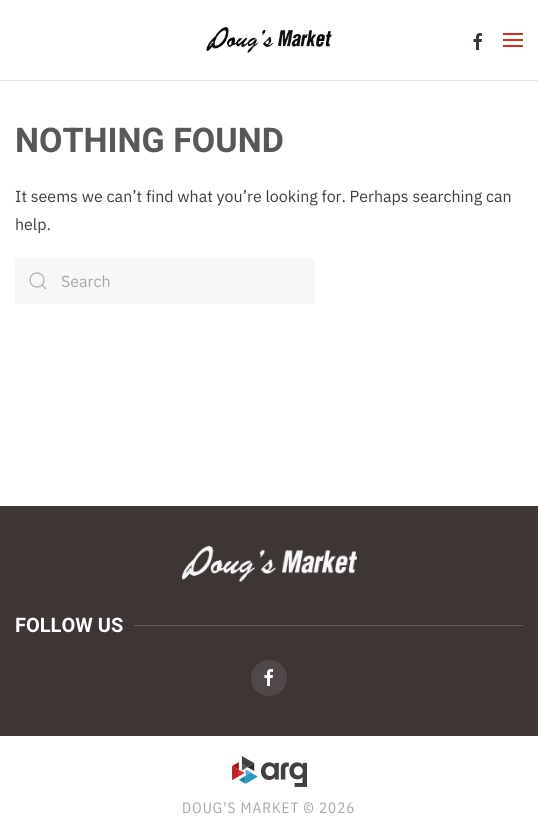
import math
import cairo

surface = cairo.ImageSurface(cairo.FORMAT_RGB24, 538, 838)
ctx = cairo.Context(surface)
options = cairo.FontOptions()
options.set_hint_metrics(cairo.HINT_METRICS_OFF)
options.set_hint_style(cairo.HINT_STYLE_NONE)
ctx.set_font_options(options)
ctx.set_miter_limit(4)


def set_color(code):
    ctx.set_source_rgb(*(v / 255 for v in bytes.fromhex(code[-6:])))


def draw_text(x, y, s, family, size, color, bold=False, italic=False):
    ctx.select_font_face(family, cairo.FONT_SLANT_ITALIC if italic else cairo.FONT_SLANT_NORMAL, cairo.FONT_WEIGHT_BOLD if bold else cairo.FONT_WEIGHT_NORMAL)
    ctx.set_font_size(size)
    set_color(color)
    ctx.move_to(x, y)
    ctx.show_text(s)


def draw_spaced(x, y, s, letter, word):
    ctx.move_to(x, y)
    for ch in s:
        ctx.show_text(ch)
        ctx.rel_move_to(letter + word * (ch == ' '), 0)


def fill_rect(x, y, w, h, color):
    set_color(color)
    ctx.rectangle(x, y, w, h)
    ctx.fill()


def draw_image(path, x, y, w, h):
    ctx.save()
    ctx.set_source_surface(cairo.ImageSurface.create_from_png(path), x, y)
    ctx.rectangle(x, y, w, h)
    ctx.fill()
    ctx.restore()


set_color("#ffffff")
ctx.paint()
fill_rect(0, 80, 538, 1, "#e5e5e5")
draw_image("assets/img1.png", 206, 27, 126, 26)
draw_image("assets/img2.png", 473, 33, 9, 17)
fill_rect(503, 33, 20, 2, "#e02b20")
fill_rect(503, 39, 20, 2, "#e02b20")
fill_rect(503, 45, 20, 2, "#e02b20")
draw_text(15, 152, "NOTHING FOUND", "Heebo", 34, "#58585b", bold=True)
draw_text(15, 202, "It seems we can’t find what you’re looking for. Perhaps searching can", "IBM Plex Sans", 16, "#383e41")
draw_text(15, 230, "help.", "IBM Plex Sans", 16, "#383e41")
fill_rect(15, 258, 300, 46, "#f7f7f7")
ctx.new_path()
ctx.arc(37, 280, 7, 0, 2 * math.pi)
set_color("#aca6a3")
ctx.set_line_width(1.1)
ctx.stroke()
ctx.new_path()
ctx.move_to(42, 285)
ctx.line_to(46, 289)
ctx.close_path()
ctx.stroke()
draw_text(61, 287, "Search", "IBM Plex Sans", 16, "#aca6a3")
fill_rect(0, 506, 538, 230, "#3e3535")
draw_image("assets/img3.png", 182, 546, 175, 36)
draw_text(15, 632, "FOLLOW US", "Heebo", 20, "#ffffff", bold=True)
fill_rect(134, 625, 389, 1, "#655d5d")
set_color("#514949")
ctx.new_path()
ctx.arc(269, 678, 18, 0, 2 * math.pi)
ctx.fill()
draw_image("assets/img4.png", 264, 669, 9, 17)
draw_image("assets/img5.png", 232, 756, 75, 31)
ctx.select_font_face("IBM Plex Sans Condensed")
ctx.set_font_size(15)
set_color("#aca6a3")
draw_spaced(182, 813, "DOUG'S MARKET © 2026", 1, 0)
surface.write_to_png("output.png")
